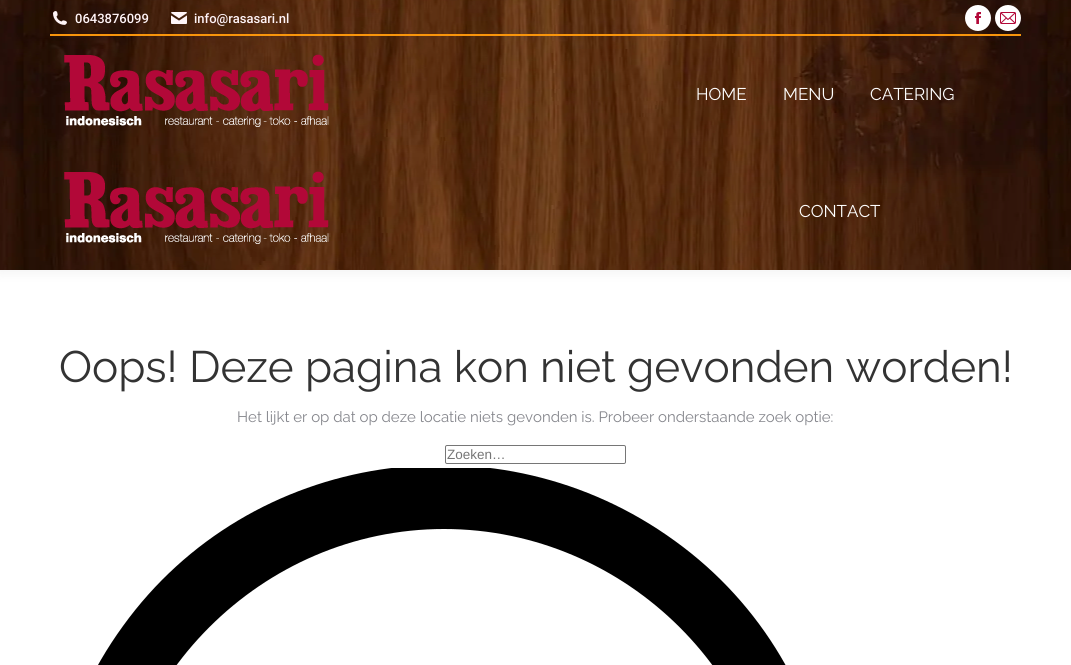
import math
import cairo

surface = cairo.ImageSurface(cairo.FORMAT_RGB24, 1071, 665)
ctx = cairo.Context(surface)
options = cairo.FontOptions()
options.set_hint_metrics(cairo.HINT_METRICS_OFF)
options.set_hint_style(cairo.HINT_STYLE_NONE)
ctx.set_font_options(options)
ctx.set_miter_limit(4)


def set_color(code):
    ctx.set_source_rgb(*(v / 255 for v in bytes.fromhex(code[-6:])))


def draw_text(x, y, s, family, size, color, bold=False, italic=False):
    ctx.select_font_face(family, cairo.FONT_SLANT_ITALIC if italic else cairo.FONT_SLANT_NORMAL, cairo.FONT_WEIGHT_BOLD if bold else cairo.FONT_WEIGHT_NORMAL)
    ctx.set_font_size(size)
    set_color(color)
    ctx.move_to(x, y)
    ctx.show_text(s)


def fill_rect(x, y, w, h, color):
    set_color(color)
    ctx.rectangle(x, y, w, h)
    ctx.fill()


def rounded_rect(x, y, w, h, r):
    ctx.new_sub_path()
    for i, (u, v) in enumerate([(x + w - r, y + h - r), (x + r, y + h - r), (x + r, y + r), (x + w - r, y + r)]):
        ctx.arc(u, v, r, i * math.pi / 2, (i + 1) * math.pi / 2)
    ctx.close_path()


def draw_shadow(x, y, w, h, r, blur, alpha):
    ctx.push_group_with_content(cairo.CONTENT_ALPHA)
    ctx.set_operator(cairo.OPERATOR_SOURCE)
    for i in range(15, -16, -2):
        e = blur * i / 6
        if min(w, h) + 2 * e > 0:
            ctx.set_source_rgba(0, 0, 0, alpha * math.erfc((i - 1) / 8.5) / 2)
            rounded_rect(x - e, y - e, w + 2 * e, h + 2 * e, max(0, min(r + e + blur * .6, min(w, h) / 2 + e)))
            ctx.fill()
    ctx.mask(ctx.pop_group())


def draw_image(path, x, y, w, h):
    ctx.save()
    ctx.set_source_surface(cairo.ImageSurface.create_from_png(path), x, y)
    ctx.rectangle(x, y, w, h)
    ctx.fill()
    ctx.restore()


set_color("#ffffff")
ctx.paint()
set_color("#000000")
draw_shadow(-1, -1, 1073, 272, 0, 7.5, 0.07)
draw_image("assets/img1.png", 0, 0, 1071, 270)
draw_image("assets/img2.png", 53, 11, 14, 14)
draw_text(75, 23, "0643876099", "Roboto Medium", 13, "#fff4f7")
draw_image("assets/img3.png", 171, 12, 16, 12)
draw_text(194, 23, "info@rasasari.nl", "Roboto Medium", 13, "#fff4f7")
set_color("#ffffff")
ctx.new_path()
ctx.arc(978, 18, 13, 0, 2 * math.pi)
ctx.fill()
draw_image("assets/img4.png", 975, 12, 6, 12)
ctx.arc(1008, 18, 13, 0, 2 * math.pi)
ctx.fill()
draw_image("assets/img5.png", 1000, 12, 16, 12)
fill_rect(50, 34, 971, 2, "#f8950c")
draw_image("assets/img6.png", 64, 54, 265, 73)
draw_image("assets/img7.png", 64, 171, 265, 73)
draw_text(696, 100, "HOME", "Raleway", 17, "#ffffff")
draw_text(783, 100, "MENU", "Raleway", 17, "#ffffff")
draw_text(870, 100, "CATERING", "Raleway", 17, "#ffffff")
draw_text(799, 217, "CONTACT", "Raleway", 17, "#ffffff")
draw_text(59, 382, "Oops! Deze pagina kon niet gevonden worden!", "Raleway", 44, "#333333")
draw_text(237, 422, "Het lijkt er op dat op deze locatie niets gevonden is. Probeer onderstaande zoek optie:", "Raleway", 15, "#85868c")
rounded_rect(445.5, 445.5, 180, 18, 1.5)
set_color("#767676")
ctx.set_line_width(1)
ctx.stroke()
draw_text(447, 459, "Zoeken…", "Liberation Sans", 13.5, "#757575")
ctx.save()
ctx.rectangle(50, 468, 971, 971)
ctx.clip()
set_color("#000000")
ctx.new_path()
ctx.move_to(760, 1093)
ctx.curve_to(887, 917, 851, 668, 675, 541)
ctx.curve_to(499, 413, 250, 450, 123, 626)
ctx.curve_to(-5, 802, 32, 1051, 208, 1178)
ctx.curve_to(347, 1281, 536, 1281, 675, 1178)
ctx.line_to(912, 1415)
ctx.curve_to(936, 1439, 972, 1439, 997, 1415)
ctx.curve_to(1021, 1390, 1021, 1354, 997, 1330)
ctx.line_to(766, 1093)
ctx.curve_to(766, 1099, 766, 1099, 760, 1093)
ctx.close_path()
ctx.move_to(778, 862)
ctx.curve_to(778, 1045, 627, 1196, 444, 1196)
ctx.curve_to(262, 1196, 111, 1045, 111, 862)
ctx.curve_to(111, 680, 262, 529, 444, 529)
ctx.curve_to(627, 529, 778, 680, 778, 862)
ctx.close_path()
ctx.fill()
ctx.restore()
surface.write_to_png("output.png")
